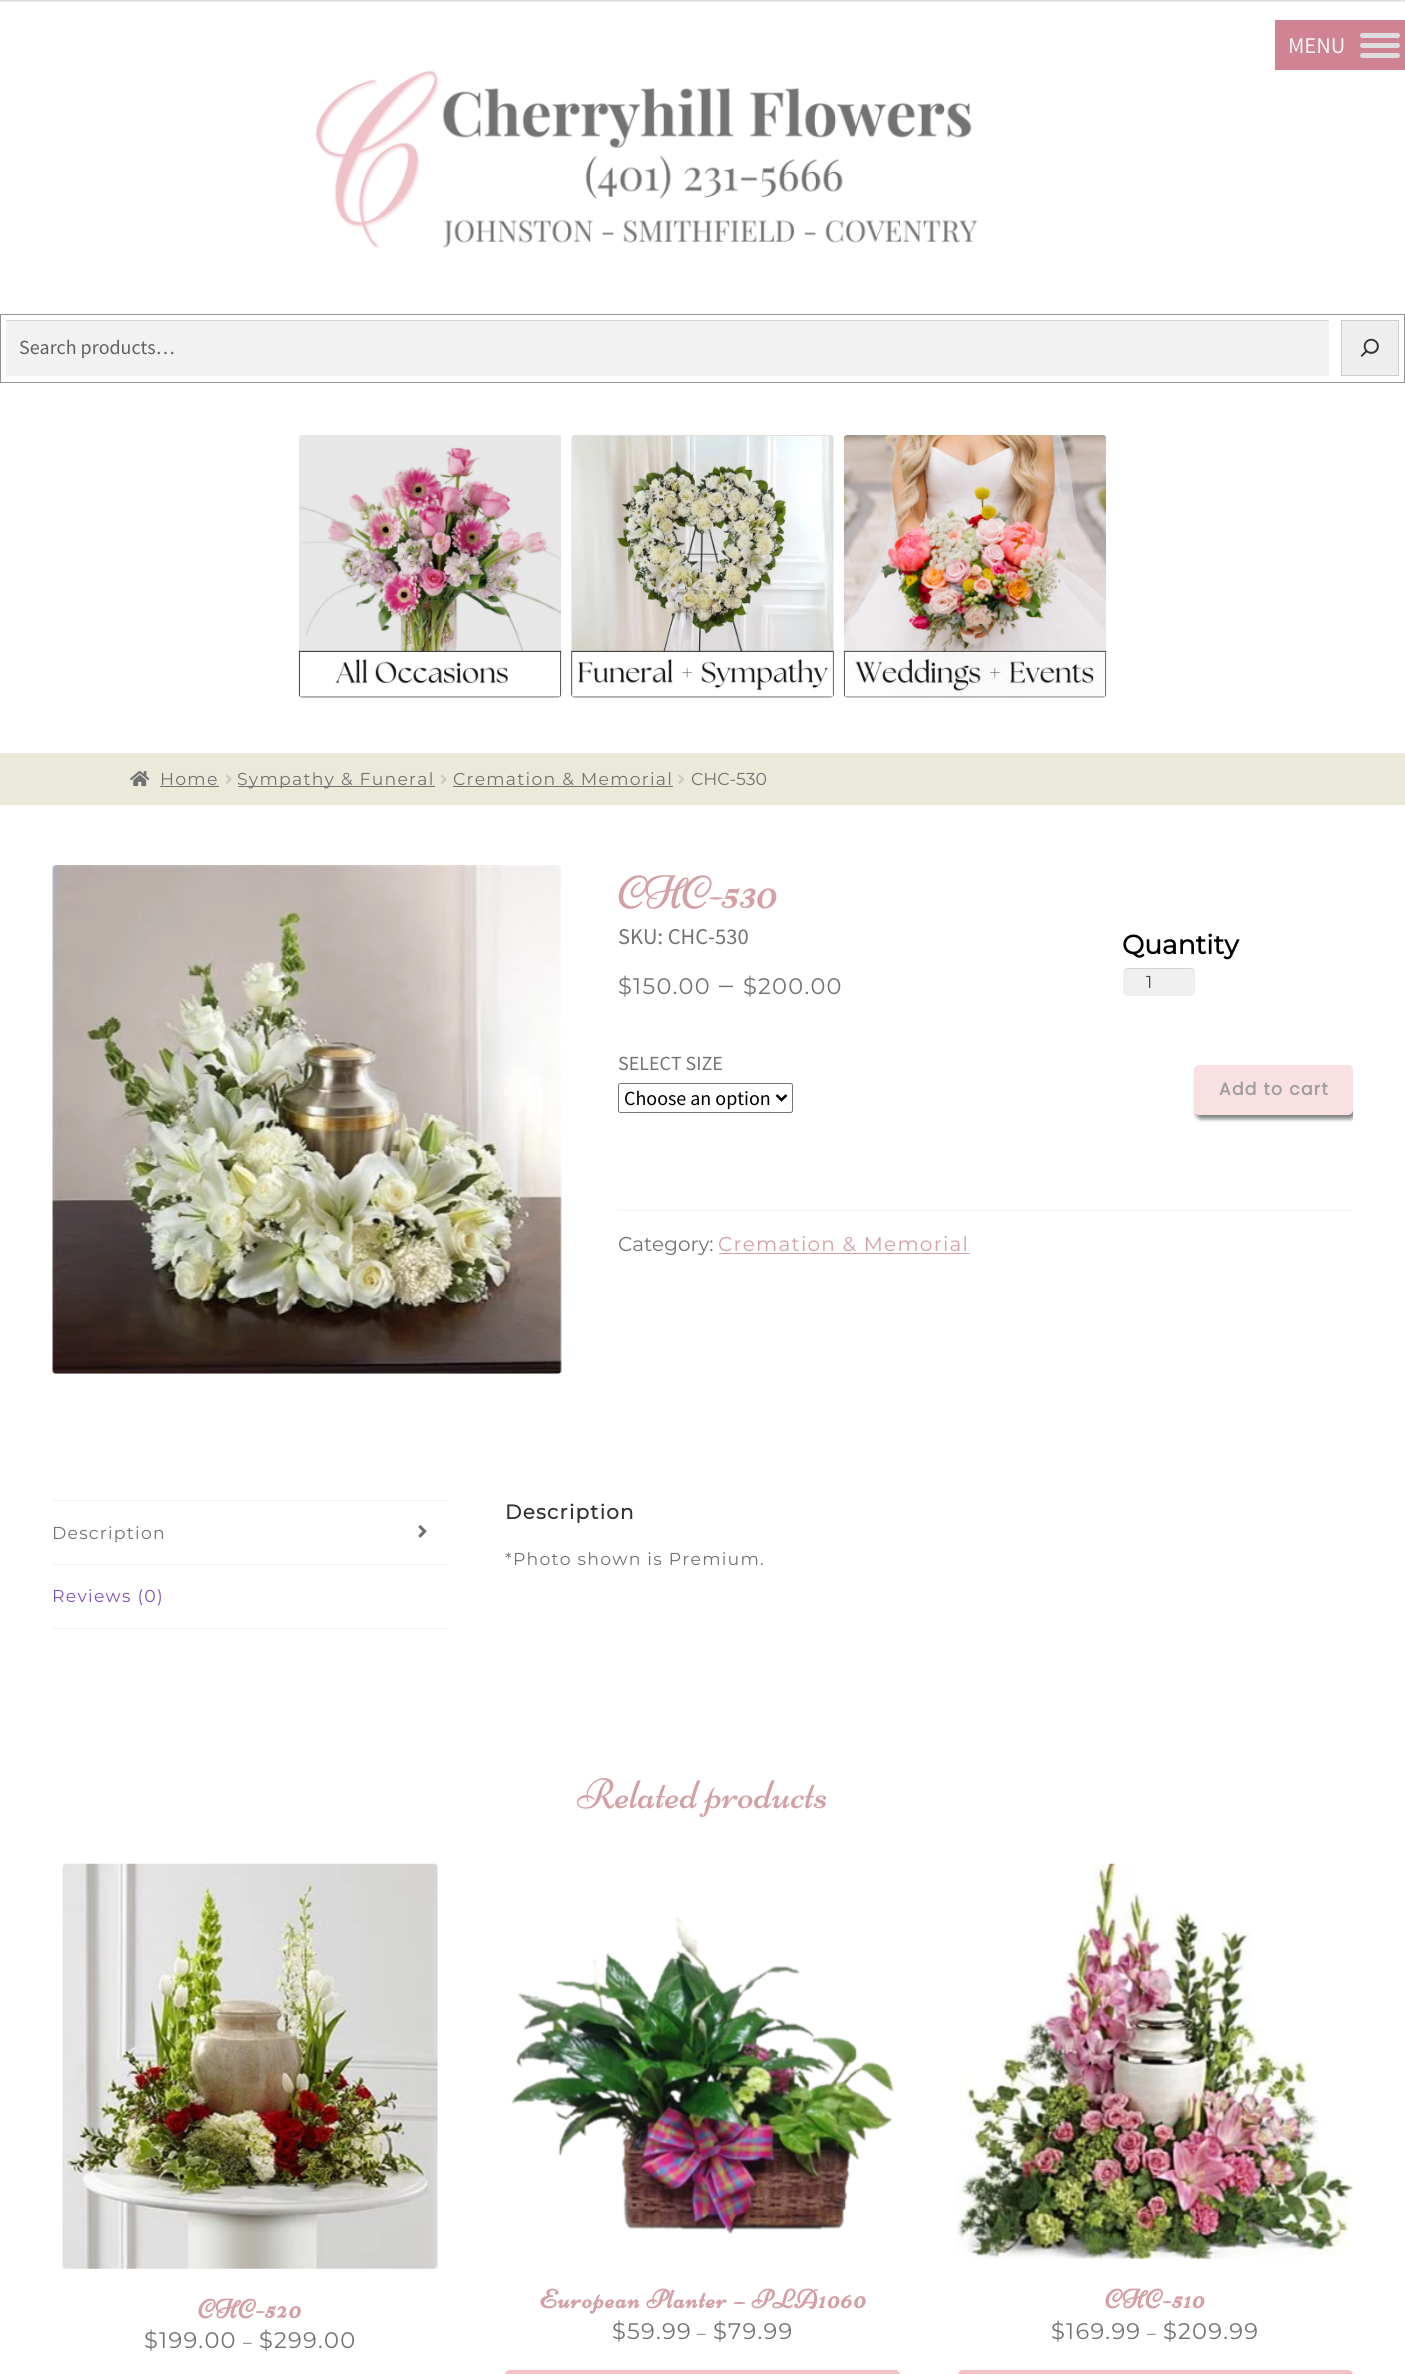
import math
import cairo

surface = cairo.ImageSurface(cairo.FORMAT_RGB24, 1405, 2374)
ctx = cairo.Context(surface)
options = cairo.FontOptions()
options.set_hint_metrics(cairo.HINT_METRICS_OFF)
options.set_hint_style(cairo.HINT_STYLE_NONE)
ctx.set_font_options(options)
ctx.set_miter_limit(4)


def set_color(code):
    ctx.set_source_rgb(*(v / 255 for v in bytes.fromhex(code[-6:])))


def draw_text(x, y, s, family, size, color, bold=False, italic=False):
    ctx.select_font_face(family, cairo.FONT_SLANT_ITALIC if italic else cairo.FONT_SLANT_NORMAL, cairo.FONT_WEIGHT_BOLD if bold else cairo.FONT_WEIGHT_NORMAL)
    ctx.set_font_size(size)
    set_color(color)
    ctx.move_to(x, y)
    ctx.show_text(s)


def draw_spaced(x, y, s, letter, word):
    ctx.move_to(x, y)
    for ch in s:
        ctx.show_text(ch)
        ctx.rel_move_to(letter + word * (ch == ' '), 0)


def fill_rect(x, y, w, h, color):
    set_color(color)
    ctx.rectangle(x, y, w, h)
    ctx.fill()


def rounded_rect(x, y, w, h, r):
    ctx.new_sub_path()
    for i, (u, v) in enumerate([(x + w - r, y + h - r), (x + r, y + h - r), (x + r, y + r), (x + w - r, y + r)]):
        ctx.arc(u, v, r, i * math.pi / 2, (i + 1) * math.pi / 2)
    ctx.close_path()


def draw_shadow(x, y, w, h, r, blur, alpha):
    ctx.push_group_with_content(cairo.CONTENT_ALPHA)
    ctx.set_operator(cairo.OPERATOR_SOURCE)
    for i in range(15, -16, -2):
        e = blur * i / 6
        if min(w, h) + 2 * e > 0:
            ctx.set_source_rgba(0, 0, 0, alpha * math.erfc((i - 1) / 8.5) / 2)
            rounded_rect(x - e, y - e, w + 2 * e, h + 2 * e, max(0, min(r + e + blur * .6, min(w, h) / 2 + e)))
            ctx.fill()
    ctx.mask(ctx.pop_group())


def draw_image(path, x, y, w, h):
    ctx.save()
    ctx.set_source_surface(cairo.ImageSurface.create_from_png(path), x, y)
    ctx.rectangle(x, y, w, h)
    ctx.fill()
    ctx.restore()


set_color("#ffffff")
ctx.paint()
set_color("#000000")
draw_shadow(0, -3, 1405, 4, 0, 1, 0.2)
fill_rect(1275, 20, 130, 50, "#cf8393")
draw_text(1288, 53, "MENU", "Source Sans Pro", 22.5, "#f6f6f7")
set_color("#dddddd")
rounded_rect(1360, 33, 40, 5, 2.5)
ctx.fill()
rounded_rect(1360, 43, 40, 5, 2.5)
ctx.fill()
rounded_rect(1360, 53, 40, 5, 2.5)
ctx.fill()
draw_image("assets/img1.png", 315, 70, 663, 179)
ctx.rectangle(0.5, 314.5, 1404, 68)
set_color("#949494")
ctx.set_line_width(1)
ctx.stroke()
fill_rect(6, 321, 1323, 55, "#f2f2f2")
fill_rect(6, 320, 1323, 1, "#d4d4d4")
draw_text(19, 354, "Search products…", "Source Sans Pro", 20, "#616161")
set_color("#eeeeee")
ctx.rectangle(1341.5, 320.5, 57, 55)
ctx.fill_preserve()
set_color("#cccccc")
ctx.stroke()
draw_image("assets/img2.png", 1360, 338, 19, 19)
draw_image("assets/img3.png", 298, 435, 264, 263)
draw_image("assets/img4.png", 571, 435, 263, 263)
draw_image("assets/img5.png", 843, 435, 264, 263)
fill_rect(0, 753, 1405, 52, "#ebe9da")
draw_image("assets/img6.png", 130, 771, 20, 16)
ctx.select_font_face("Montserrat Thin")
ctx.set_font_size(17.25)
set_color("#727272")
draw_spaced(160, 785, "Home", 1.25, 0)
fill_rect(160, 786, 59, 1, "#727272")
draw_image("assets/img7.png", 225, 774, 7, 10)
fill_rect(238, 786, 197, 1, "#727272")
draw_spaced(237, 785, "Sympathy & Funeral", 1.25, 0)
draw_image("assets/img7.png", 440, 774, 7, 10)
draw_spaced(453, 785, "Cremation & Memorial", 1.25, 0)
fill_rect(453, 786, 220, 1, "#727272")
draw_image("assets/img8.png", 678, 774, 7, 10)
draw_text(691, 785, "CHC-530", "Montserrat Thin", 17.25, "#727272")
draw_image("assets/img9.png", 52, 865, 510, 509)
ctx.select_font_face("Niconne")
ctx.set_font_size(46.5)
set_color("#d4a0a5")
draw_spaced(618, 908, "CHC-530", -1.25, 0)
fill_rect(618, 1210, 735, 1, "#f2f2f2")
draw_text(618, 944, "SKU: CHC-530", "Source Sans Pro", 22.5, "#727272")
draw_text(618, 1251, "Category:", "Montserrat Thin", 20, "#727272")
set_color("#d4a0a5")
draw_spaced(718, 1251, "Cremation & Memorial", 1.25, 0)
fill_rect(719, 1253, 251, 1, "#d4a0a5")
draw_text(618, 1070, "SELECT SIZE", "Source Sans Pro", 20, "#727272")
rounded_rect(618.5, 1083.5, 174, 29, 2)
set_color("#767676")
ctx.stroke()
ctx.new_path()
ctx.move_to(776.5, 1095)
ctx.line_to(781.5, 1100)
ctx.line_to(786.5, 1095)
set_color("#000000")
ctx.set_line_width(2.5)
ctx.stroke()
draw_text(624, 1105, "Choose an option", "Source Sans Pro", 20, "#000000")
draw_text(1122, 954, "Quantity", "Montserrat", 26.5, "#000000", bold=True)
set_color("#efefef")
rounded_rect(1123, 968, 72, 28, 5)
ctx.fill()
ctx.set_source_rgba(0, 0, 0, 0.12)
ctx.new_path()
ctx.move_to(1128, 969)
ctx.line_to(1190, 969)
ctx.curve_to(1193, 969, 1195, 971, 1195, 974)
ctx.line_to(1195, 973)
ctx.curve_to(1195, 970, 1193, 968, 1190, 968)
ctx.line_to(1128, 968)
ctx.curve_to(1126, 968, 1124, 969, 1124, 971)
ctx.curve_to(1125, 970, 1126, 969, 1128, 969)
ctx.close_path()
ctx.fill()
draw_text(1146, 988, "1", "Montserrat Thin", 17.25, "#43454b")
ctx.save()
ctx.rectangle(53, 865, 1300, 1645)
ctx.clip()
set_color("#808080")
draw_shadow(1196, 1069, 159, 50, 5, 2, 1)
ctx.restore()
set_color("#f9e0e2")
rounded_rect(1194, 1065, 159, 50, 5)
ctx.fill()
ctx.select_font_face("Poppins", cairo.FONT_SLANT_NORMAL, cairo.FONT_WEIGHT_BOLD)
set_color("#9d9d9d")
draw_spaced(1219, 1095, "Add to cart", 1.25, 0)
ctx.select_font_face("Montserrat Thin")
ctx.set_font_size(22.5)
set_color("#727272")
draw_spaced(618, 994, "$150.00", 1.25, 0)
ctx.set_font_size(28)
draw_spaced(719, 994, "–", 1.25, 0)
ctx.set_font_size(22.5)
draw_spaced(743, 994, "$200.00", 1.25, 0)
fill_rect(53, 1500, 395, 1, "#f2f2f2")
fill_rect(53, 1564, 395, 1, "#f2f2f2")
ctx.set_font_size(17.25)
set_color("#727272")
draw_spaced(52, 1539, "Description", 1.25, 0)
draw_image("assets/img10.png", 418, 1525, 9, 13)
fill_rect(53, 1628, 395, 1, "#f2f2f2")
set_color("#7f54b3")
draw_spaced(52, 1602, "Reviews (0)", 1.25, 0)
ctx.select_font_face("Montserrat", cairo.FONT_SLANT_NORMAL, cairo.FONT_WEIGHT_BOLD)
ctx.set_font_size(20)
set_color("#333333")
draw_spaced(505, 1519, "Description", 1.25, 0)
ctx.select_font_face("Montserrat Thin")
ctx.set_font_size(17.25)
set_color("#727272")
draw_spaced(505, 1565, "*Photo shown is Premium.", 1.25, 0)
draw_text(577, 1808, "Related products", "Niconne", 42.5, "#d4a0a5")
draw_image("assets/img11.png", 62, 1863, 376, 406)
ctx.select_font_face("Niconne", cairo.FONT_SLANT_NORMAL, cairo.FONT_WEIGHT_BOLD)
ctx.set_font_size(26.5)
draw_spaced(198, 2318, "CHC-520", 1.25, 0)
ctx.select_font_face("Montserrat Thin")
ctx.set_font_size(22.5)
set_color("#727272")
draw_spaced(144, 2348, "$199.00", 1.25, 0)
ctx.set_font_size(17.25)
draw_spaced(243, 2348, "–", 1.25, 0)
ctx.set_font_size(22.5)
draw_spaced(259, 2348, "$299.00", 1.25, 0)
draw_image("assets/img12.png", 511, 1916, 383, 318)
ctx.select_font_face("Niconne", cairo.FONT_SLANT_NORMAL, cairo.FONT_WEIGHT_BOLD)
ctx.set_font_size(26.5)
set_color("#d4a0a5")
draw_spaced(539, 2308, "European Planter – PLA1060", 1.25, 0)
ctx.select_font_face("Montserrat Thin")
ctx.set_font_size(22.5)
set_color("#727272")
draw_spaced(612, 2339, "$59.99", 1.25, 0)
ctx.set_font_size(17.25)
draw_spaced(697, 2339, "–", 1.25, 0)
ctx.set_font_size(22.5)
draw_spaced(713, 2339, "$79.99", 1.25, 0)
set_color("#f2c0c5")
rounded_rect(505, 2370, 395, 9, 5)
ctx.fill()
draw_image("assets/img13.png", 957, 1863, 396, 396)
ctx.select_font_face("Niconne", cairo.FONT_SLANT_NORMAL, cairo.FONT_WEIGHT_BOLD)
ctx.set_font_size(26.5)
set_color("#d4a0a5")
draw_spaced(1105, 2308, "CHC-510", 1.25, 0)
ctx.select_font_face("Montserrat Thin")
ctx.set_font_size(22.5)
set_color("#727272")
draw_spaced(1051, 2339, "$169.99", 1.25, 0)
ctx.set_font_size(17.25)
draw_spaced(1147, 2339, "–", 1.25, 0)
ctx.set_font_size(22.5)
draw_spaced(1163, 2339, "$209.99", 1.25, 0)
set_color("#f2c0c5")
rounded_rect(958, 2370, 395, 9, 5)
ctx.fill()
surface.write_to_png("output.png")
